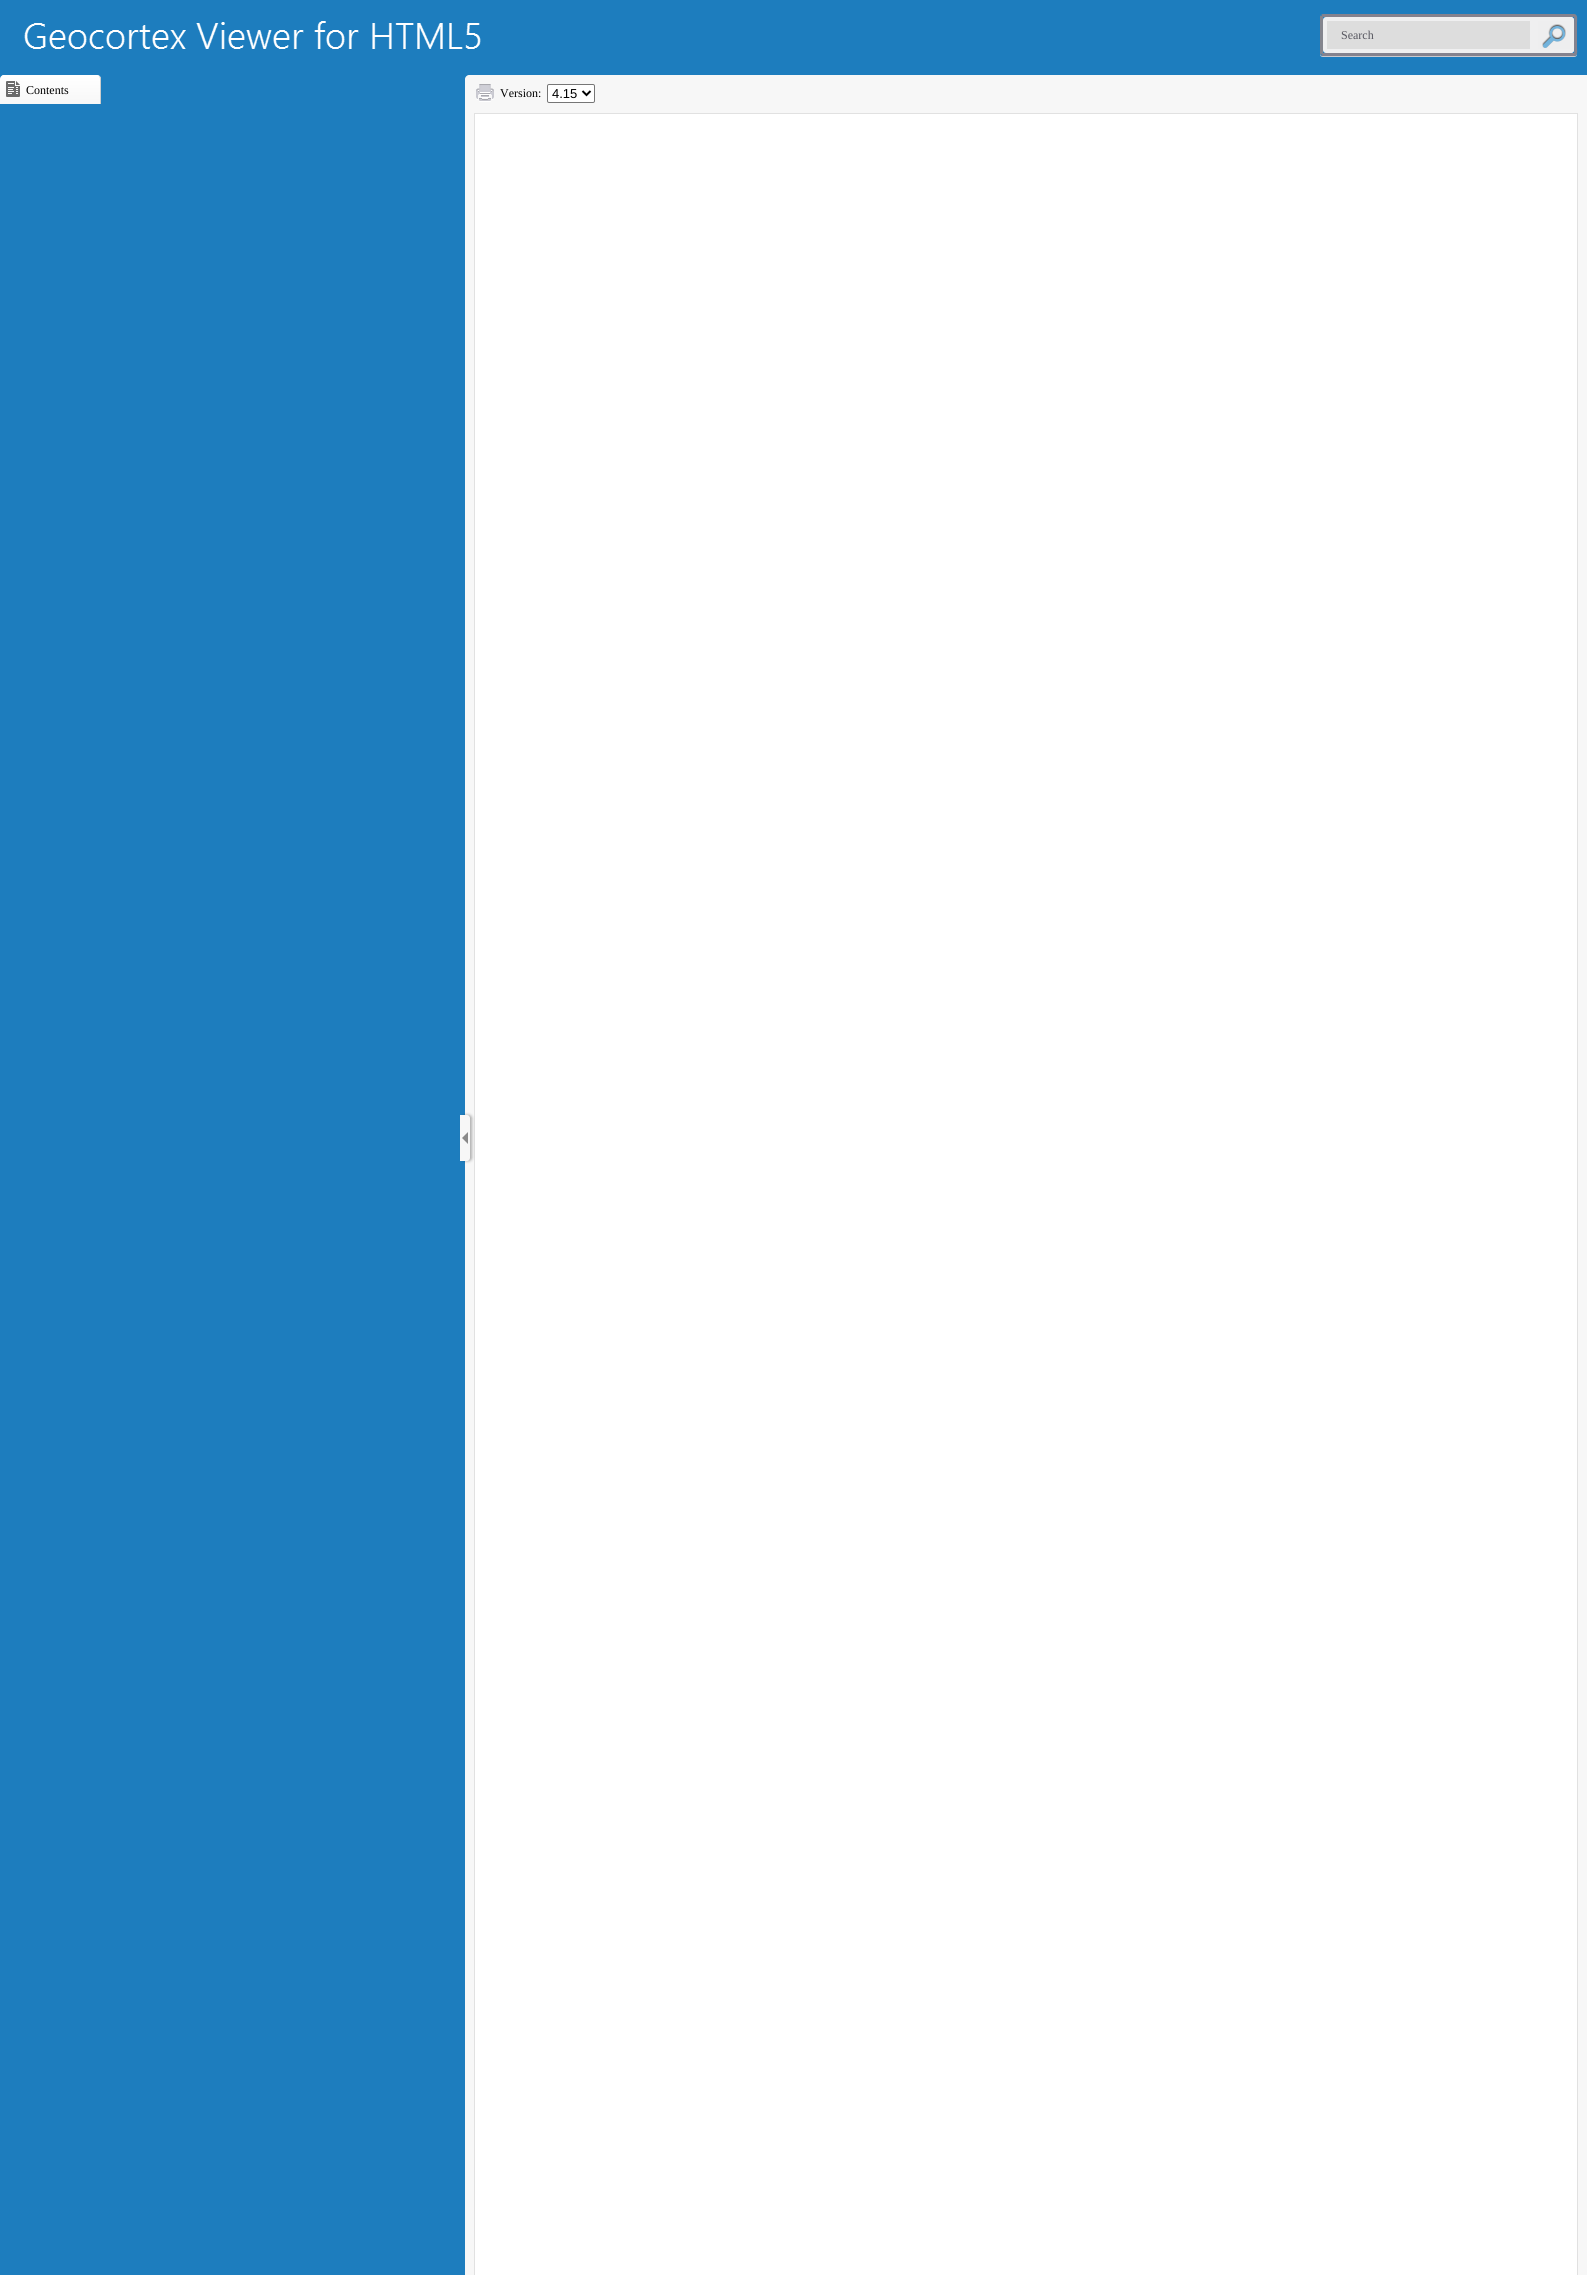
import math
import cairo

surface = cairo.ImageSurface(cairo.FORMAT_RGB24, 1587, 2275)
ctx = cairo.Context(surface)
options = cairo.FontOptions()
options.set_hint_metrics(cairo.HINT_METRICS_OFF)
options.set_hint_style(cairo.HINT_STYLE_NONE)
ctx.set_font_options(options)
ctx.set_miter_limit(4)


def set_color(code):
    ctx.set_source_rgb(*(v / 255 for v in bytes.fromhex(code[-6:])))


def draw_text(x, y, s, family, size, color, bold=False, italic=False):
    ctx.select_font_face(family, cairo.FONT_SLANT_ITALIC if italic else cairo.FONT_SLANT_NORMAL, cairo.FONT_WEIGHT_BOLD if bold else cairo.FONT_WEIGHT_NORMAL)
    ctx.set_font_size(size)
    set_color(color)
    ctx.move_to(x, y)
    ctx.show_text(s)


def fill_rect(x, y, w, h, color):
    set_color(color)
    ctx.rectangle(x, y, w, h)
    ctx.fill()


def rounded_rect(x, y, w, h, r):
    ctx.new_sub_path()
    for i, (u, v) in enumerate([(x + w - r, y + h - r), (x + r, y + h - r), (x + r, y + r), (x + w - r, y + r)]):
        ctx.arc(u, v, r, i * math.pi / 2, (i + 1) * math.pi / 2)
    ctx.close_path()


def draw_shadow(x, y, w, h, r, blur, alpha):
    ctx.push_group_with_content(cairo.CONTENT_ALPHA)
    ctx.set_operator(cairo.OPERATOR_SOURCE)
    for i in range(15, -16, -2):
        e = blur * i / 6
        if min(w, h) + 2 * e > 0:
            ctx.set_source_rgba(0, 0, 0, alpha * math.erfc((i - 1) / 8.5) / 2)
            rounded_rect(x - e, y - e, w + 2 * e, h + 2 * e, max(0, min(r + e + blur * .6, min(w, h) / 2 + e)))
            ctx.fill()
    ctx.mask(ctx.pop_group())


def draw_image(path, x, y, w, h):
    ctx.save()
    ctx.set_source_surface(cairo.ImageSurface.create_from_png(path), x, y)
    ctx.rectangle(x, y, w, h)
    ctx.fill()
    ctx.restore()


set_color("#1d7dbe")
ctx.paint()
draw_image("assets/img1.png", 24, 21, 457, 28)
set_color("#cac9ce")
ctx.new_path()
ctx.move_to(1320, 53)
ctx.line_to(1320, 54)
ctx.curve_to(1320, 56, 1321, 57, 1323, 57)
ctx.line_to(1574, 57)
ctx.curve_to(1576, 57, 1577, 56, 1577, 54)
ctx.line_to(1577, 53)
ctx.curve_to(1577, 55, 1576, 56, 1574, 56)
ctx.line_to(1323, 56)
ctx.curve_to(1321, 56, 1320, 55, 1320, 53)
ctx.close_path()
ctx.fill()
ctx.new_path()
ctx.move_to(1322, 16)
ctx.line_to(1323, 15.5)
ctx.line_to(1574, 15.5)
ctx.curve_to(1576.5, 15.5, 1575.5, 20, 1575.5, 23)
ctx.line_to(1575.5, 47)
ctx.curve_to(1575.5, 50, 1576.5, 54.5, 1574, 54.5)
ctx.line_to(1323, 54.5)
ctx.line_to(1322, 54)
set_color("#84828e")
ctx.set_line_width(3)
ctx.stroke()
ctx.new_path()
ctx.move_to(1322, 54)
ctx.line_to(1321.5, 53)
ctx.line_to(1321.5, 17)
ctx.line_to(1322, 16)
set_color("#84858e")
ctx.stroke()
set_color("#dddddd")
ctx.new_path()
ctx.move_to(1326, 19)
ctx.line_to(1532, 19)
ctx.line_to(1532, 51)
ctx.line_to(1326, 51)
ctx.curve_to(1325.5, 51, 1325, 50.5, 1325, 50)
ctx.line_to(1325, 20)
ctx.curve_to(1325, 19.5, 1325.5, 19, 1326, 19)
ctx.close_path()
ctx.fill_preserve()
set_color("#efeff0")
ctx.set_line_width(4)
ctx.stroke()
draw_text(1341, 39, "Search", "Liberation Serif", 12, "#56565f")
set_color("#eeeeef")
ctx.new_path()
ctx.move_to(1534, 17)
ctx.line_to(1571, 17)
ctx.curve_to(1572.5, 17, 1574, 18.5, 1574, 20)
ctx.line_to(1574, 50)
ctx.curve_to(1574, 51.5, 1572.5, 53, 1571, 53)
ctx.line_to(1534, 53)
ctx.close_path()
ctx.fill()
draw_image("assets/img2.png", 1542, 24, 24, 24)
ctx.new_path()
ctx.move_to(1536, 19)
ctx.line_to(1571, 19)
ctx.curve_to(1571.5, 19, 1572, 19.5, 1572, 20)
ctx.line_to(1572, 50)
ctx.curve_to(1572, 50.5, 1571.5, 51, 1571, 51)
ctx.line_to(1536, 51)
ctx.close_path()
set_color("#efeff0")
ctx.stroke()
ctx.save()
ctx.new_path()
ctx.move_to(4, 75)
ctx.line_to(97, 75)
ctx.curve_to(99, 75, 101, 77, 101, 79)
ctx.line_to(101, 104)
ctx.line_to(0, 104)
ctx.line_to(0, 79)
ctx.curve_to(0, 77, 2, 75, 4, 75)
ctx.close_path()
ctx.clip()
gradient = cairo.LinearGradient(50, 48, 50, 76)
gradient.add_color_stop_rgba(0, 1, 1, 1, 1)
gradient.add_color_stop_rgba(1, 0.969, 0.969, 0.969, 1)
ctx.set_source(gradient)
ctx.rectangle(0, 75, 101, 1)
ctx.fill()
gradient = cairo.LinearGradient(50, 76, 50, 104)
gradient.add_color_stop_rgba(0, 1, 1, 1, 1)
gradient.add_color_stop_rgba(1, 0.969, 0.969, 0.969, 1)
ctx.set_source(gradient)
ctx.rectangle(0, 76, 101, 28)
ctx.fill()
ctx.restore()
set_color("#ffffff")
ctx.new_path()
ctx.move_to(4, 75)
ctx.curve_to(2, 75, 0, 77, 0, 79)
ctx.curve_to(0, 77, 2, 76, 4, 76)
ctx.line_to(97, 76)
ctx.line_to(99, 77)
ctx.line_to(100, 76)
ctx.line_to(97, 75)
ctx.close_path()
ctx.fill()
set_color("#cccccc")
ctx.new_path()
ctx.move_to(100, 104)
ctx.line_to(101, 104)
ctx.line_to(101, 79)
ctx.curve_to(101, 78, 100.5, 77, 100, 76)
ctx.line_to(99, 77)
ctx.curve_to(100, 77, 100, 78, 100, 79)
ctx.close_path()
ctx.fill()
draw_image("assets/img3.png", 6, 81, 14, 16)
draw_text(26, 94, "Contents", "Liberation Serif", 12, "#000000")
set_color("#f7f7f7")
ctx.new_path()
ctx.move_to(469, 75)
ctx.line_to(1587, 75)
ctx.line_to(1587, 2275)
ctx.line_to(465, 2275)
ctx.line_to(465, 79)
ctx.curve_to(465, 77, 467, 75, 469, 75)
ctx.close_path()
ctx.fill()
draw_image("assets/img4.png", 476, 84, 18, 18)
draw_text(500, 97, "Version:", "Liberation Serif", 12, "#000000")
set_color("#ffffff")
rounded_rect(547.5, 84.5, 47, 18, 1.5)
ctx.fill_preserve()
set_color("#767676")
ctx.set_line_width(1)
ctx.stroke()
ctx.new_path()
ctx.move_to(582.5, 91)
ctx.line_to(586.5, 95)
ctx.line_to(590.5, 91)
set_color("#000000")
ctx.set_line_width(2)
ctx.stroke()
draw_text(552, 98, "4.15", "Liberation Sans", 13, "#000000")
fill_rect(475, 114, 1102, 2161, "#ffffff")
fill_rect(474, 113, 1104, 1, "#e1e1e1")
fill_rect(1577, 113, 1, 2162, "#e1e1e1")
fill_rect(474, 113, 1, 2162, "#e1e1e1")
set_color("#000000")
draw_shadow(462, 1115, 10, 46, 3, 1.5, 0.3)
set_color("#f7f7f7")
ctx.new_path()
ctx.move_to(460, 1115)
ctx.line_to(467, 1115)
ctx.curve_to(468.5, 1115, 470, 1116.5, 470, 1118)
ctx.line_to(470, 1158)
ctx.curve_to(470, 1159.5, 468.5, 1161, 467, 1161)
ctx.line_to(460, 1161)
ctx.close_path()
ctx.fill()
set_color("#898989")
ctx.new_path()
ctx.move_to(468, 1132)
ctx.line_to(468, 1144)
ctx.line_to(462, 1138)
ctx.close_path()
ctx.fill()
surface.write_to_png("output.png")
